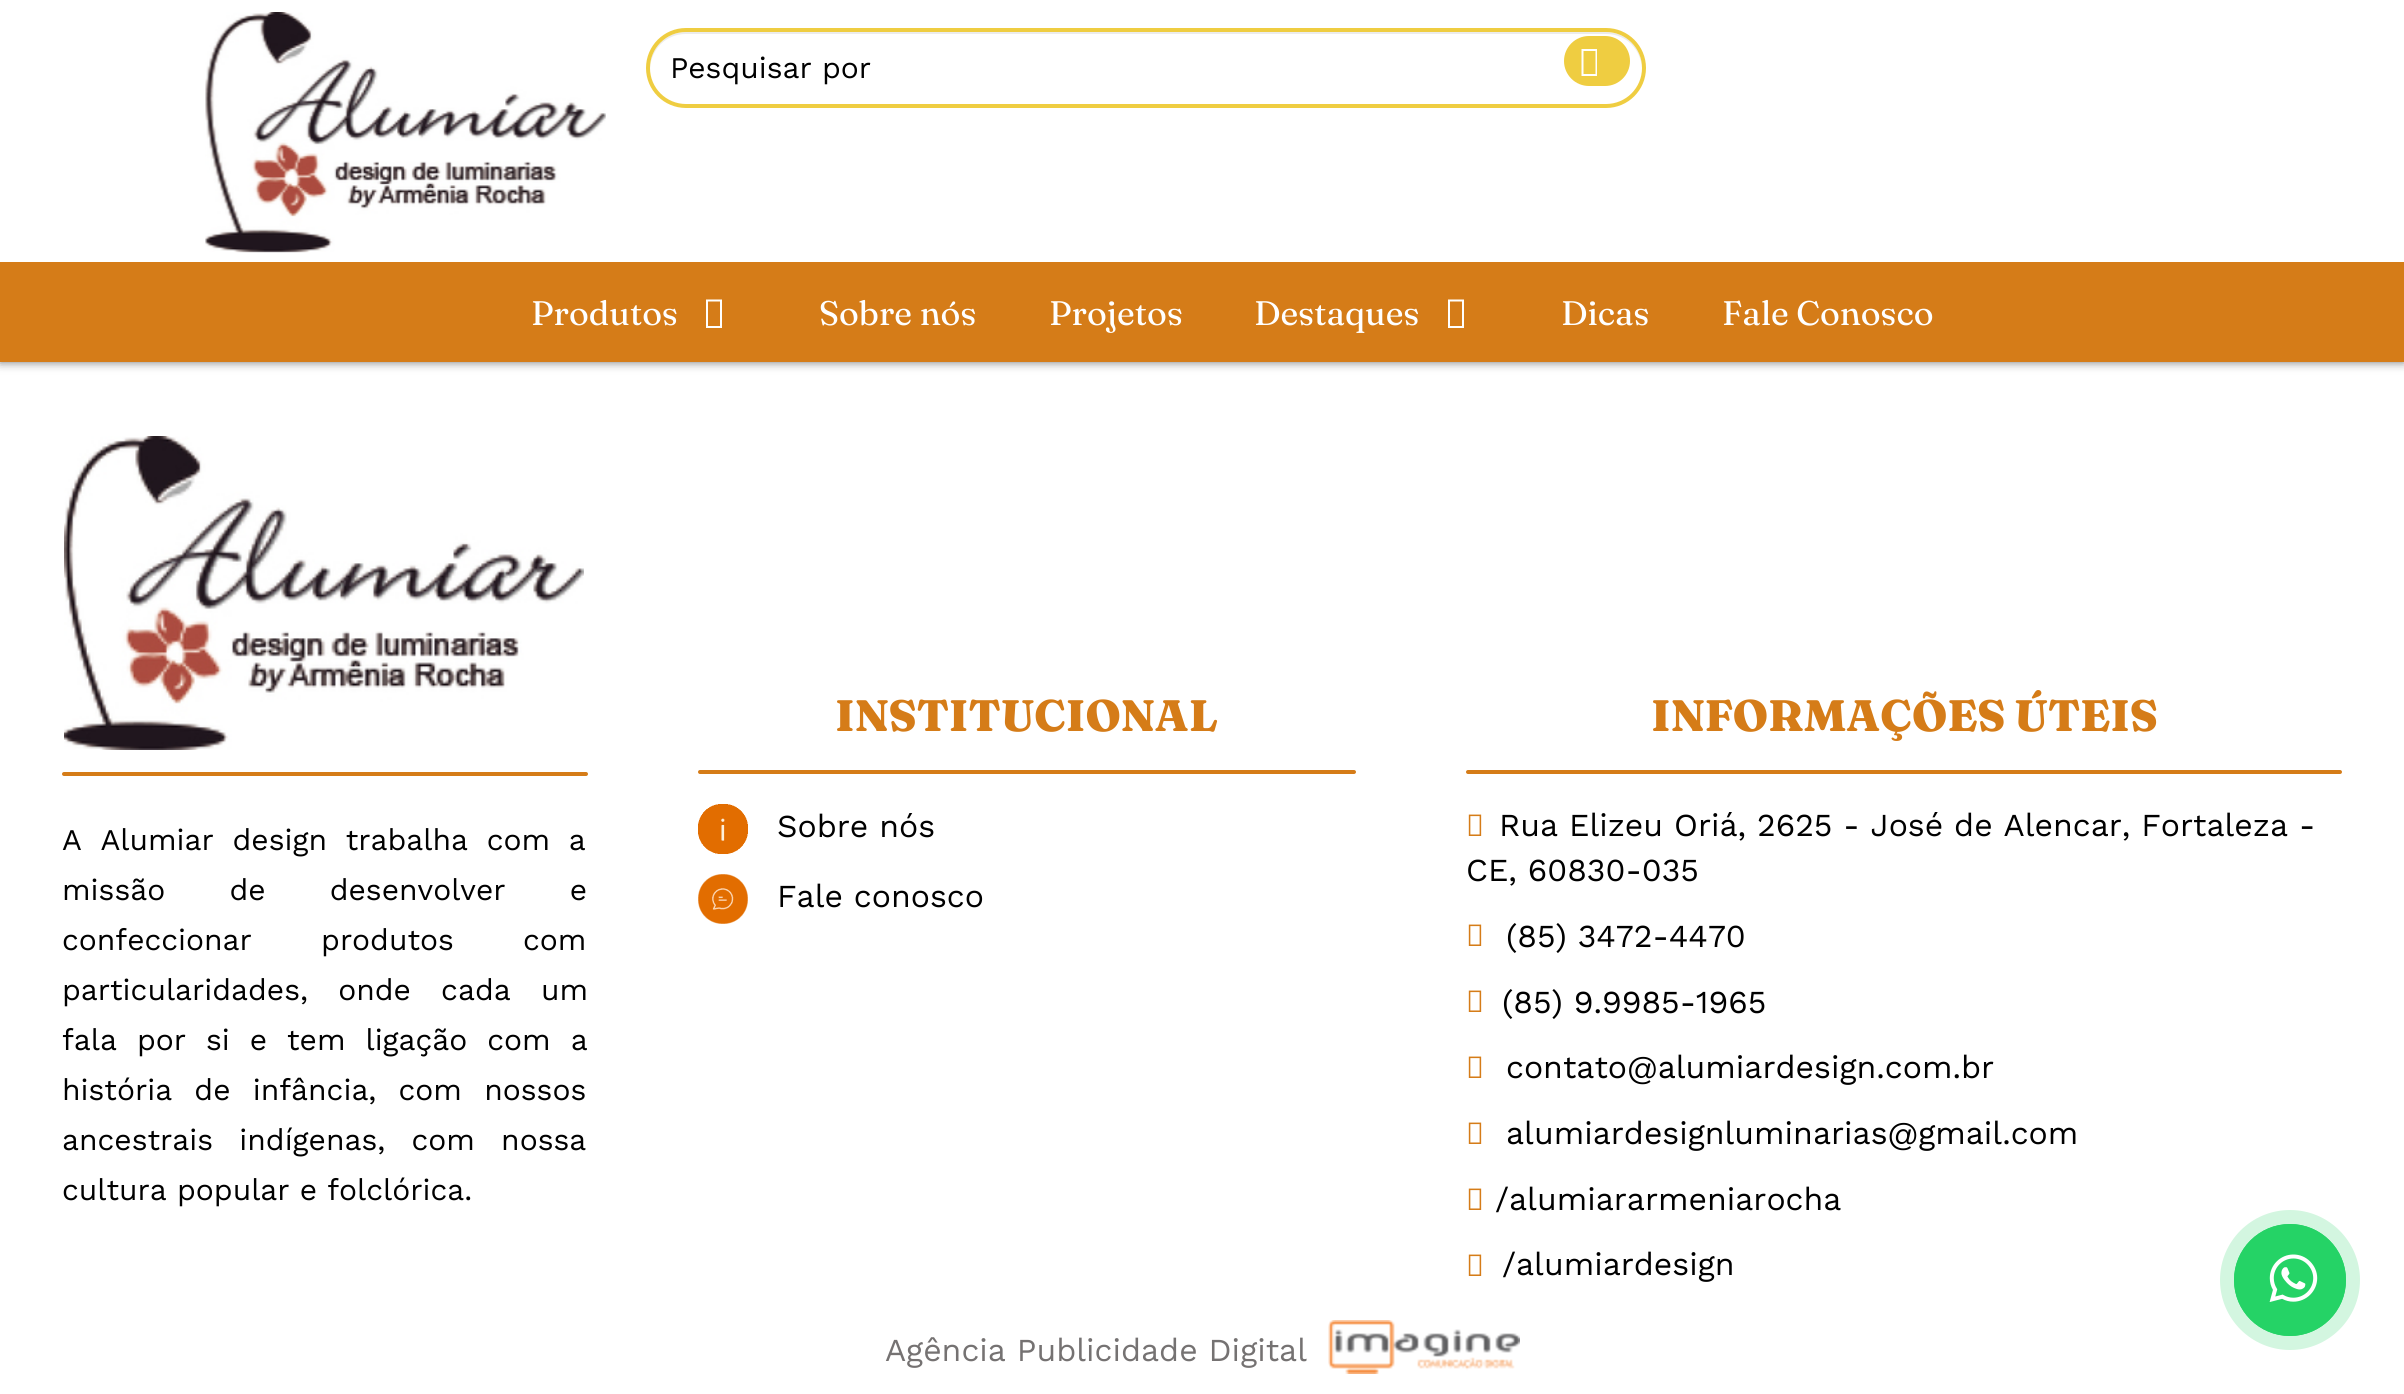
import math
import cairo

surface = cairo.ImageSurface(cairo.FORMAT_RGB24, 2404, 1394)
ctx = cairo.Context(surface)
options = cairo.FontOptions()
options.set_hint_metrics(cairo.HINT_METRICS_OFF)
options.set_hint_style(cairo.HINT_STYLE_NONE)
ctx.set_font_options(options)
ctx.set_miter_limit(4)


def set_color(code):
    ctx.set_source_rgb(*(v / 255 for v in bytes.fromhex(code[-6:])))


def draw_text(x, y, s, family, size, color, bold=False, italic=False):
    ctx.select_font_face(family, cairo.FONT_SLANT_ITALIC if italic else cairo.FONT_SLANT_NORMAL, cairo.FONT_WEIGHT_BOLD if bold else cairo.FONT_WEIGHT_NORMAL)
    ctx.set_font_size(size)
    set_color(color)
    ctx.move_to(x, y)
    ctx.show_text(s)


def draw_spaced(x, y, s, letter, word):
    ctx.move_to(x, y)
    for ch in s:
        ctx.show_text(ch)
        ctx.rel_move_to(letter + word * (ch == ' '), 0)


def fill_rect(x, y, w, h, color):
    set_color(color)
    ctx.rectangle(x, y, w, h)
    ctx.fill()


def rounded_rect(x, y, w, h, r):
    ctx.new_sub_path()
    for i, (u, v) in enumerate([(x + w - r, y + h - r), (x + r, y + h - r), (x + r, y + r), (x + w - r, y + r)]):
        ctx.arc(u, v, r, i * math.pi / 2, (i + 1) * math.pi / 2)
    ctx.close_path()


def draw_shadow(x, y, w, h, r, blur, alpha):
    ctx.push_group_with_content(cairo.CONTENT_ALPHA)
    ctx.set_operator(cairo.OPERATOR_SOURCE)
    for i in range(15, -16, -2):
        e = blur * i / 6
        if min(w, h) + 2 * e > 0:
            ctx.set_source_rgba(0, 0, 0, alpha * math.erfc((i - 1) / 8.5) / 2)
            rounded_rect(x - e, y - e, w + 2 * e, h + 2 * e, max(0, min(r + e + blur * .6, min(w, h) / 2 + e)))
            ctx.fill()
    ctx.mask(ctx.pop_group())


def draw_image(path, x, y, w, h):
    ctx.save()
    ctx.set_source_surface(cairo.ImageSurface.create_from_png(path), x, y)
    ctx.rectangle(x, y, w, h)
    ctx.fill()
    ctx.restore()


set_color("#ffffff")
ctx.paint()
set_color("#636363")
draw_shadow(0, 0, 2404, 362, 0, 5, 0.9)
fill_rect(0, 0, 2404, 262, "#ffffff")
draw_image("assets/img1.png", 205, 12, 401, 241)
set_color("#ececec")
ctx.new_path()
ctx.move_to(686, 34)
ctx.line_to(1606, 34)
ctx.curve_to(1626, 34, 1641, 49, 1642, 69)
ctx.line_to(1642, 68)
ctx.curve_to(1642, 48, 1626, 32, 1606, 32)
ctx.line_to(686, 32)
ctx.curve_to(666, 32, 650, 48, 650, 68)
ctx.line_to(650, 69)
ctx.curve_to(651, 49, 666, 34, 686, 34)
ctx.close_path()
ctx.fill()
rounded_rect(648, 30, 996, 76, 38)
set_color("#efcd41")
ctx.set_line_width(4)
ctx.stroke()
draw_text(670, 78, "Pesquisar por", "Work Sans", 30, "#000000")
set_color("#efcd41")
rounded_rect(1564, 36, 66, 50, 25)
ctx.fill()
set_color("#ffffff")
ctx.new_path()
ctx.move_to(1581.5, 76)
ctx.line_to(1581.5, 49)
ctx.line_to(1597, 49)
ctx.line_to(1597, 76)
ctx.close_path()
ctx.move_to(1583.5, 74)
ctx.line_to(1595.5, 74)
ctx.line_to(1595.5, 51)
ctx.line_to(1583.5, 51)
ctx.close_path()
ctx.fill()
fill_rect(0, 262, 2404, 100, "#d57c18")
draw_text(531, 325, "Produtos", "Fraunces", 34, "#ffffff")
ctx.new_path()
ctx.move_to(706, 328)
ctx.line_to(706, 299.5)
ctx.line_to(722, 299.5)
ctx.line_to(722, 328)
ctx.close_path()
ctx.move_to(708, 326)
ctx.line_to(720, 326)
ctx.line_to(720, 301.5)
ctx.line_to(708, 301.5)
ctx.close_path()
ctx.fill()
draw_text(819, 325, "Sobre nós", "Fraunces", 34, "#ffffff")
draw_text(1049, 325, "Projetos", "Fraunces", 34, "#ffffff")
draw_text(1254, 325, "Destaques", "Fraunces", 34, "#ffffff")
ctx.new_path()
ctx.move_to(1448, 328)
ctx.line_to(1448, 299.5)
ctx.line_to(1464, 299.5)
ctx.line_to(1464, 328)
ctx.close_path()
ctx.move_to(1450, 326)
ctx.line_to(1462, 326)
ctx.line_to(1462, 301.5)
ctx.line_to(1450, 301.5)
ctx.close_path()
ctx.fill()
draw_text(1561, 325, "Dicas", "Fraunces", 34, "#ffffff")
draw_text(1722, 325, "Fale Conosco", "Fraunces", 34, "#ffffff")
draw_text(835, 731, "INSTITUCIONAL", "Fraunces ExtraBold", 44, "#d57c18")
rounded_rect(698, 770, 658, 4, 2)
ctx.fill()
draw_image("assets/img2.png", 698, 804, 50, 50)
draw_text(777, 837, "Sobre nós", "Work Sans", 32, "#000000")
draw_image("assets/img3.png", 698, 874, 50, 50)
draw_text(777, 907, "Fale conosco", "Work Sans", 32, "#000000")
draw_text(1651, 731, "INFORMAÇÕES ÚTEIS", "Fraunces ExtraBold", 44, "#d57c18")
rounded_rect(1466, 770, 876, 4, 2)
ctx.fill()
draw_image("assets/img4.png", 1468, 814, 14, 22)
draw_text(1499, 836, "Rua Elizeu Oriá, 2625 - José de Alencar, Fortaleza -", "Work Sans", 32, "#000000")
draw_text(1466, 881, "CE, 60830-035", "Work Sans", 32, "#000000")
draw_image("assets/img4.png", 1468, 924, 14, 22)
draw_text(1506, 947, "(85) 3472-4470", "Work Sans", 32, "#000000")
draw_image("assets/img4.png", 1468, 990, 14, 22)
draw_text(1502, 1013, "(85) 9.9985-1965", "Work Sans", 32, "#000000")
draw_image("assets/img4.png", 1468, 1056, 14, 22)
draw_text(1506, 1078, "contato@alumiardesign.com.br", "Work Sans", 32, "#000000")
draw_image("assets/img4.png", 1468, 1122, 14, 22)
draw_text(1506, 1144, "alumiardesignluminarias@gmail.com", "Work Sans", 32, "#000000")
draw_image("assets/img4.png", 1468, 1188, 14, 22)
draw_text(1495, 1210, "/alumiararmeniarocha", "Work Sans", 32, "#000000")
draw_image("assets/img4.png", 1468, 1254, 14, 22)
draw_text(1502, 1275, "/alumiardesign", "Work Sans", 32, "#000000")
draw_image("assets/img5.png", 64, 436, 520, 314)
set_color("#d57c18")
rounded_rect(62, 772, 526, 4, 2)
ctx.fill()
ctx.set_font_size(30)
set_color("#000000")
draw_spaced(62, 850, "A Alumiar design trabalha com a", 0, 8.5)
draw_spaced(62, 900, "missão de desenvolver e", 0, 54)
draw_spaced(62, 950, "confeccionar produtos com", 0, 59)
draw_spaced(62, 1000, "particularidades, onde cada um", 0, 20)
draw_spaced(62, 1050, "fala por si e tem ligação com a", 0, 9.75)
draw_spaced(62, 1100, "história de infância, com nossos", 0, 12)
draw_spaced(62, 1150, "ancestrais indígenas, com nossa", 0, 16)
draw_text(62, 1200, "cultura popular e folclórica.", "Work Sans", 30, "#000000")
draw_text(885, 1361, "Agência Publicidade Digital", "Work Sans", 32, "#757272")
draw_image("assets/img6.png", 1328, 1320, 192, 54)
set_color("#d3f6e0")
ctx.arc(2290, 1280, 70, 0, 2 * math.pi)
ctx.fill()
ctx.arc(2290, 1280, 55, 0, 2 * math.pi)
set_color("#25d366")
ctx.set_line_width(2)
ctx.stroke()
ctx.arc(2290, 1280, 56, 0, 2 * math.pi)
ctx.fill()
draw_image("assets/img7.png", 2269, 1254, 49, 48)
surface.write_to_png("output.png")
